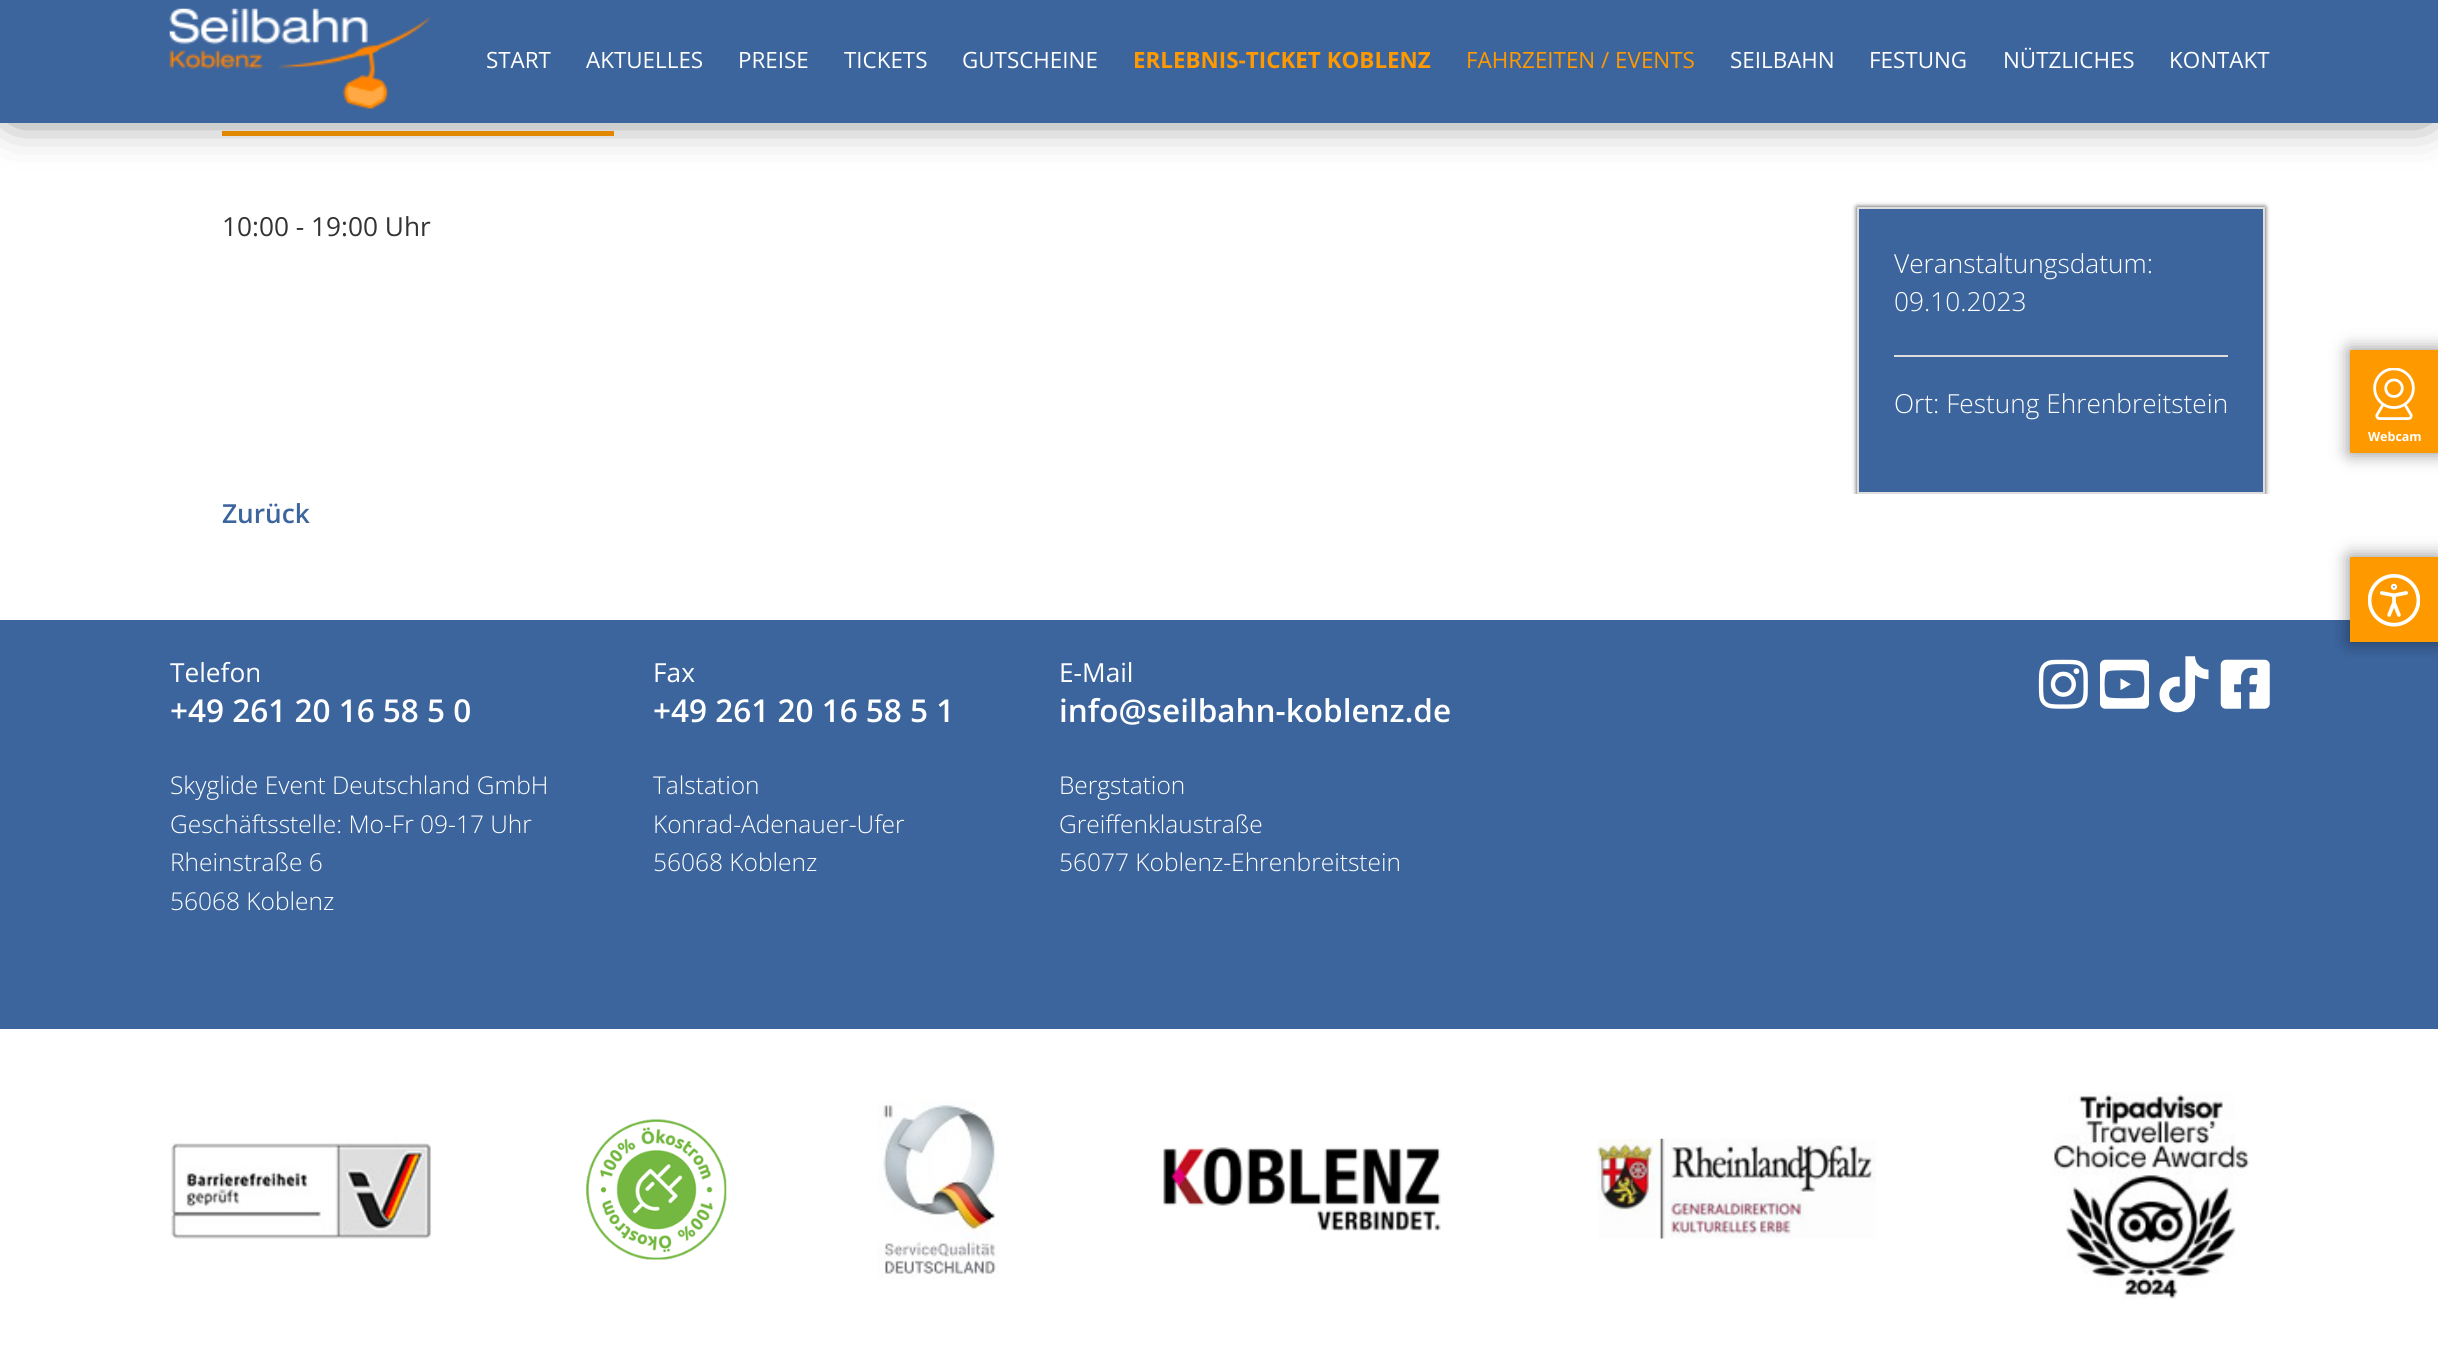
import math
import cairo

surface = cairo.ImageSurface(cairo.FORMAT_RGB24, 2438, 1350)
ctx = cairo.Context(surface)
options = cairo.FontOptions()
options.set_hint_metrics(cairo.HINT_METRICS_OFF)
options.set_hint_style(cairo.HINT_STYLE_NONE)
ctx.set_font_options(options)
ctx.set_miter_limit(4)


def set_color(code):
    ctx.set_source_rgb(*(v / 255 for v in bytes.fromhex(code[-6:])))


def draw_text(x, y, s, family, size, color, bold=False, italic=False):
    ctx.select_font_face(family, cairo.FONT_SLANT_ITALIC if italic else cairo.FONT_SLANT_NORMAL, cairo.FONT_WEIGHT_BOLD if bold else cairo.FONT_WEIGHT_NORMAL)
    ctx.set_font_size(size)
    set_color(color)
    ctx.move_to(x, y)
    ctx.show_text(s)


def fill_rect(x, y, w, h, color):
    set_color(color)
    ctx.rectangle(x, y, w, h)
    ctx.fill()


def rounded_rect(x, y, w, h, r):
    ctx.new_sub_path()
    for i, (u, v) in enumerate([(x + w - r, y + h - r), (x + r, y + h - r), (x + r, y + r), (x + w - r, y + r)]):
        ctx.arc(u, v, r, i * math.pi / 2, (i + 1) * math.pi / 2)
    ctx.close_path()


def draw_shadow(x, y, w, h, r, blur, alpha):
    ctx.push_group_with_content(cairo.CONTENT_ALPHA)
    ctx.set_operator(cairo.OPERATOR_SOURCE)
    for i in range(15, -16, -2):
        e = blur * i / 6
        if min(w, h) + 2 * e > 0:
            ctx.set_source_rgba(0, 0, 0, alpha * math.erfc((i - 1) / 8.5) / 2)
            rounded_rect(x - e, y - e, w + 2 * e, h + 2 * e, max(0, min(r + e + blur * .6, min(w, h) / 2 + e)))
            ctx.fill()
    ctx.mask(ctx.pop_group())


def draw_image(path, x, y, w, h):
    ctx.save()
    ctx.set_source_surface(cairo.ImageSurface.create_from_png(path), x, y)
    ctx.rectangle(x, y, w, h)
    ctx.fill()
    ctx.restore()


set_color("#ffffff")
ctx.paint()
fill_rect(222, 131, 392, 5, "#ff9900")
set_color("#000000")
draw_shadow(14, 16, 2412, 94, 0, 24.5, 0.75)
fill_rect(0, 0, 2438, 123, "#3c659e")
draw_image("assets/img1.png", 169, 8, 262, 101)
draw_text(486, 68, "START", "Open Sans", 22.4, "#ffffff")
draw_text(586, 68, "AKTUELLES", "Open Sans", 22.4, "#ffffff")
draw_text(738, 68, "PREISE", "Open Sans", 22.4, "#ffffff")
draw_text(844, 68, "TICKETS", "Open Sans", 22.4, "#ffffff")
draw_text(962, 68, "GUTSCHEINE", "Open Sans", 22.4, "#ffffff")
draw_text(1133, 68, "ERLEBNIS-TICKET KOBLENZ", "Open Sans", 22.4, "#ff9900", bold=True)
draw_text(1466, 68, "FAHRZEITEN / EVENTS", "Open Sans", 22.4, "#ff9900")
draw_text(1730, 68, "SEILBAHN", "Open Sans", 22.4, "#ffffff")
draw_text(1869, 68, "FESTUNG", "Open Sans", 22.4, "#ffffff")
draw_text(2003, 68, "NÜTZLICHES", "Open Sans", 22.4, "#ffffff")
draw_text(2169, 68, "KONTAKT", "Open Sans", 22.4, "#ffffff")
draw_text(222, 236, "10:00 - 19:00 Uhr", "Open Sans", 26.25, "#333333")
ctx.save()
ctx.rectangle(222, 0, 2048, 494)
ctx.clip()
set_color("#000000")
draw_shadow(1857, 207, 408, 287, 0, 2.5, 0.75)
ctx.restore()
set_color("#3c659e")
ctx.rectangle(1858, 208, 406, 285)
ctx.fill_preserve()
set_color("#dddddd")
ctx.stroke()
draw_text(1894, 273, "Veranstaltungsdatum:", "Open Sans Light", 26.25, "#ffffff")
draw_text(1894, 311, "09.10.2023", "Open Sans Light", 26.25, "#ffffff")
fill_rect(1894, 355, 334, 2, "#dddddd")
draw_text(1894, 413, "Ort: Festung Ehrenbreitstein", "Open Sans Light", 26.25, "#ffffff")
draw_text(222, 523, "Zurück", "Open Sans SemiBold", 26.25, "#3c659e")
fill_rect(0, 620, 2438, 409, "#3c659e")
draw_text(170, 682, "Telefon", "Open Sans", 26.25, "#ffffff")
draw_text(170, 722, "+49 261 20 16 58 5 0", "Open Sans SemiBold", 31.5, "#ffffff")
draw_text(170, 794, "Skyglide Event Deutschland GmbH", "Open Sans Light", 24.5, "#ffffff")
draw_text(170, 833, "Geschäftsstelle: Mo-Fr 09-17 Uhr", "Open Sans Light", 24.5, "#ffffff")
draw_text(170, 871, "Rheinstraße 6", "Open Sans Light", 24.5, "#ffffff")
draw_text(170, 910, "56068 Koblenz", "Open Sans Light", 24.5, "#ffffff")
draw_text(653, 682, "Fax", "Open Sans", 26.25, "#ffffff")
draw_text(653, 722, "+49 261 20 16 58 5 1", "Open Sans SemiBold", 31.5, "#ffffff")
draw_text(653, 794, "Talstation", "Open Sans Light", 24.5, "#ffffff")
draw_text(653, 833, "Konrad-Adenauer-Ufer", "Open Sans Light", 24.5, "#ffffff")
draw_text(653, 871, "56068 Koblenz", "Open Sans Light", 24.5, "#ffffff")
draw_text(1059, 682, "E-Mail", "Open Sans", 26.25, "#ffffff")
draw_text(1059, 722, "info@seilbahn-koblenz.de", "Open Sans SemiBold", 31.5, "#ffffff")
draw_text(1059, 794, "Bergstation", "Open Sans Light", 24.5, "#ffffff")
draw_text(1059, 833, "Greiffenklaustraße", "Open Sans Light", 24.5, "#ffffff")
draw_text(1059, 871, "56077 Koblenz-Ehrenbreitstein", "Open Sans Light", 24.5, "#ffffff")
draw_image("assets/img2.png", 2038, 659, 50, 50)
draw_image("assets/img3.png", 2100, 659, 49, 50)
draw_image("assets/img4.png", 2159, 656, 50, 57)
draw_image("assets/img5.png", 2220, 659, 50, 50)
draw_image("assets/img6.png", 170, 1139, 262, 100)
draw_image("assets/img7.png", 586, 1119, 141, 141)
draw_image("assets/img8.png", 877, 1100, 122, 179)
draw_image("assets/img9.png", 1163, 1147, 278, 84)
draw_image("assets/img10.png", 1597, 1138, 279, 101)
draw_image("assets/img11.png", 2053, 1092, 197, 207)
set_color("#000000")
draw_shadow(2350, 350, 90, 103, 0, 9, 0.47)
fill_rect(2350, 350, 88, 103, "#ff9900")
draw_image("assets/img12.png", 2373, 368, 42, 52)
draw_text(2368, 441, "Webcam", "Open Sans", 12.5, "#ffffff", bold=True)
set_color("#000000")
draw_shadow(2350, 557, 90, 85, 0, 9, 0.47)
fill_rect(2350, 557, 88, 85, "#ff9900")
draw_image("assets/img13.png", 2368, 574, 52, 53)
surface.write_to_png("output.png")
